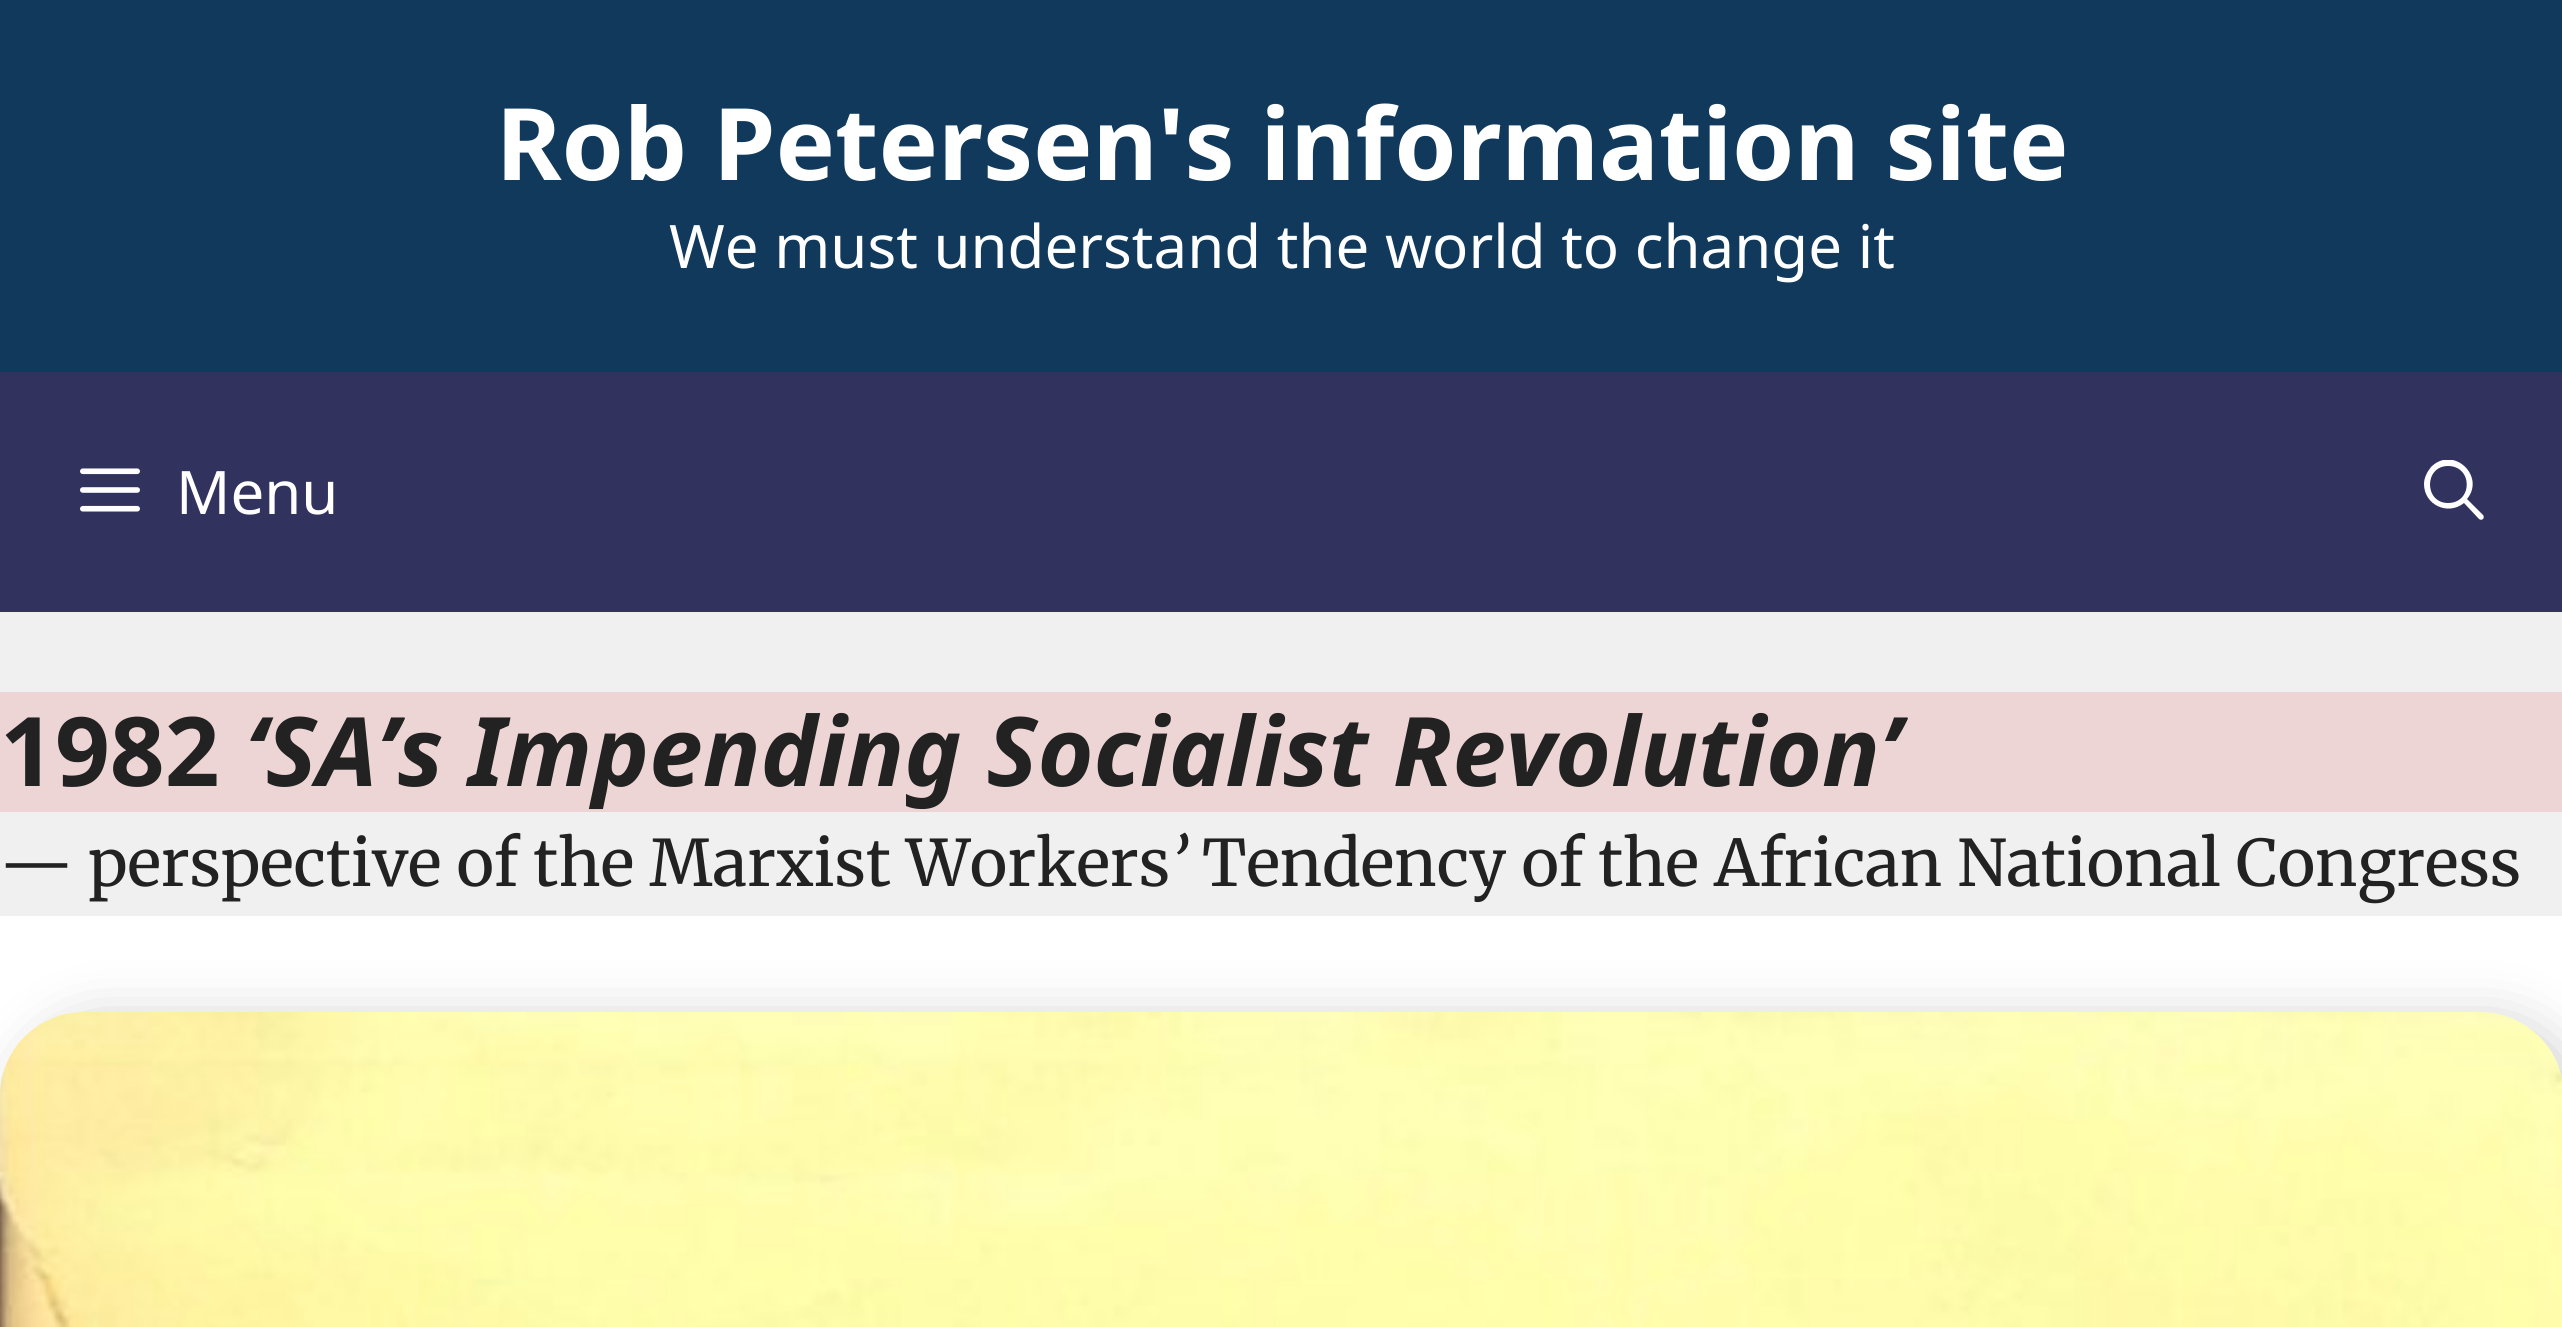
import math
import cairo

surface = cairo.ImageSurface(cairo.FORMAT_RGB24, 2562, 1327)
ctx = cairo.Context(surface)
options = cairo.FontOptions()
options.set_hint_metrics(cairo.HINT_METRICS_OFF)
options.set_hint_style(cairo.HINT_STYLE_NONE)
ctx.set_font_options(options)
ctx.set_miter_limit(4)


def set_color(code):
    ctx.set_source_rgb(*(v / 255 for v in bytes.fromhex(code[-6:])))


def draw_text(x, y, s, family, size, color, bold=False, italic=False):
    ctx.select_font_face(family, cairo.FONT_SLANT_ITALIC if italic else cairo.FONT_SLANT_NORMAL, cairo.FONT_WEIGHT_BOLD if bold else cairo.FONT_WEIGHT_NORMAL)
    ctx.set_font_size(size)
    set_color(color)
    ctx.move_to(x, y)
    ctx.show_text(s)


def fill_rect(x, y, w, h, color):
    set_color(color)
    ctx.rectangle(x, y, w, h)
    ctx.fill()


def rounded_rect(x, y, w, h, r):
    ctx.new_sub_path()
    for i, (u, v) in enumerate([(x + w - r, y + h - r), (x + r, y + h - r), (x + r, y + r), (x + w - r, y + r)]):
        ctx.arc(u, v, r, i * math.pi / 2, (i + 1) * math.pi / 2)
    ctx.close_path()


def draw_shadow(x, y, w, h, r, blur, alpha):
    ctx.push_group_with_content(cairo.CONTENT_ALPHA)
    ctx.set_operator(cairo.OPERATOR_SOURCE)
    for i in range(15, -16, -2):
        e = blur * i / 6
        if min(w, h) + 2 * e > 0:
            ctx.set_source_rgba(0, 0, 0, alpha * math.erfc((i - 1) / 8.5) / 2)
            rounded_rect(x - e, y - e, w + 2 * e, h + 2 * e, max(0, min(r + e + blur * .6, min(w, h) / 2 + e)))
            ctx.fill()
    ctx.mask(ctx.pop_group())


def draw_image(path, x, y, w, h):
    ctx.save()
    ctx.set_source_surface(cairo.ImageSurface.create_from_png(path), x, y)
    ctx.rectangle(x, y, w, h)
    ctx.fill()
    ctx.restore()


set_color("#f0f0f0")
ctx.paint()
fill_rect(0, 0, 2562, 372, "#10395c")
draw_text(496, 180, "Rob Petersen's information site", "Noto Sans", 100, "#ffffff", bold=True)
draw_text(669, 268, "We must understand the world to change it", "Noto Sans", 60, "#ffffff")
fill_rect(0, 372, 2562, 240, "#32325f")
draw_image("assets/img1.png", 80, 468, 60, 44)
draw_text(176, 514, "Menu", "Noto Sans", 60, "#ffffff")
ctx.save()
ctx.rectangle(2424, 460, 60, 60)
ctx.clip()
ctx.set_fill_rule(cairo.FILL_RULE_EVEN_ODD)
ctx.new_path()
ctx.move_to(2448, 466)
ctx.curve_to(2424, 466, 2424, 503, 2448, 503)
ctx.curve_to(2473, 503, 2473, 466, 2448, 466)
ctx.close_path()
ctx.move_to(2424, 484)
ctx.curve_to(2424, 478, 2427, 472, 2431, 467)
ctx.curve_to(2453, 445, 2486, 476, 2467, 499)
ctx.line_to(2483, 515)
ctx.curve_to(2484, 516, 2484, 518, 2483, 519)
ctx.curve_to(2482, 520, 2480, 520, 2479, 519)
ctx.line_to(2464, 503)
ctx.curve_to(2448, 516, 2424, 505, 2424, 484)
ctx.close_path()
ctx.fill()
ctx.restore()
fill_rect(0, 916, 2562, 180, "#ffffff")
fill_rect(0, 692, 2562, 120, "#eed5d5")
draw_text(0, 786, "1982", "Noto Sans", 96, "#222222", bold=True)
draw_text(245, 786, "‘SA’s Impending Socialist Revolution’", "Noto Sans", 96, "#222222", bold=True, italic=True)
draw_text(0, 886, "— perspective of the Marxist Workers", "Merriweather Light", 64, "#222222")
draw_text(1170, 886, "’", "Merriweather", 64, "#222222", italic=True)
draw_text(1202, 886, "Tendency of the African National Congress", "Merriweather Light", 64, "#222222")
set_color("#000000")
draw_shadow(16, 1020, 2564, 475, 84, 28, 0.2)
draw_image("assets/img2.png", 0, 1012, 2562, 315)
surface.write_to_png("output.png")
